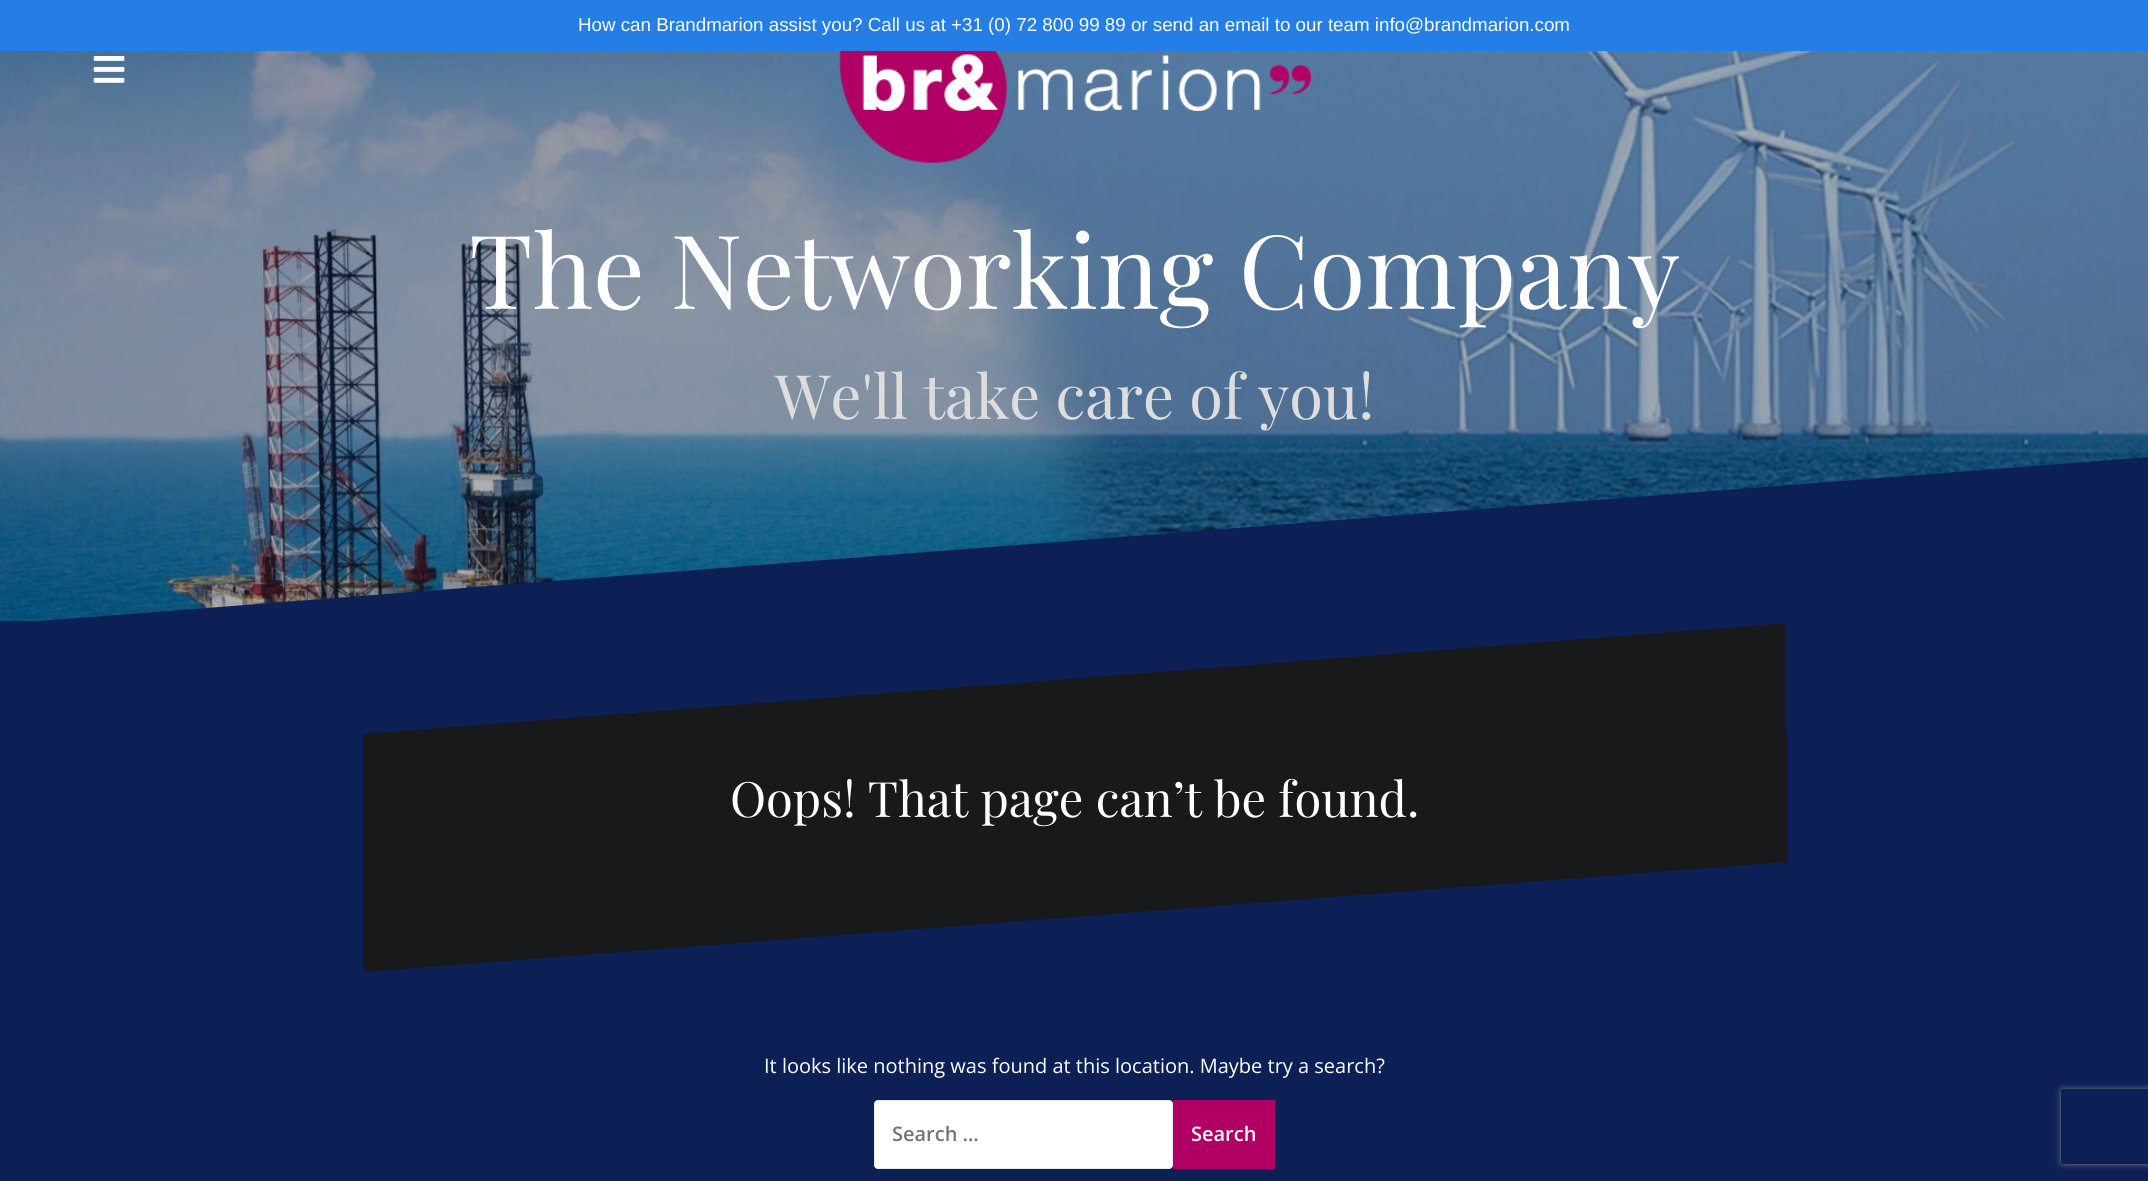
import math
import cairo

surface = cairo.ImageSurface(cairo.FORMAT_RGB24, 2148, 1181)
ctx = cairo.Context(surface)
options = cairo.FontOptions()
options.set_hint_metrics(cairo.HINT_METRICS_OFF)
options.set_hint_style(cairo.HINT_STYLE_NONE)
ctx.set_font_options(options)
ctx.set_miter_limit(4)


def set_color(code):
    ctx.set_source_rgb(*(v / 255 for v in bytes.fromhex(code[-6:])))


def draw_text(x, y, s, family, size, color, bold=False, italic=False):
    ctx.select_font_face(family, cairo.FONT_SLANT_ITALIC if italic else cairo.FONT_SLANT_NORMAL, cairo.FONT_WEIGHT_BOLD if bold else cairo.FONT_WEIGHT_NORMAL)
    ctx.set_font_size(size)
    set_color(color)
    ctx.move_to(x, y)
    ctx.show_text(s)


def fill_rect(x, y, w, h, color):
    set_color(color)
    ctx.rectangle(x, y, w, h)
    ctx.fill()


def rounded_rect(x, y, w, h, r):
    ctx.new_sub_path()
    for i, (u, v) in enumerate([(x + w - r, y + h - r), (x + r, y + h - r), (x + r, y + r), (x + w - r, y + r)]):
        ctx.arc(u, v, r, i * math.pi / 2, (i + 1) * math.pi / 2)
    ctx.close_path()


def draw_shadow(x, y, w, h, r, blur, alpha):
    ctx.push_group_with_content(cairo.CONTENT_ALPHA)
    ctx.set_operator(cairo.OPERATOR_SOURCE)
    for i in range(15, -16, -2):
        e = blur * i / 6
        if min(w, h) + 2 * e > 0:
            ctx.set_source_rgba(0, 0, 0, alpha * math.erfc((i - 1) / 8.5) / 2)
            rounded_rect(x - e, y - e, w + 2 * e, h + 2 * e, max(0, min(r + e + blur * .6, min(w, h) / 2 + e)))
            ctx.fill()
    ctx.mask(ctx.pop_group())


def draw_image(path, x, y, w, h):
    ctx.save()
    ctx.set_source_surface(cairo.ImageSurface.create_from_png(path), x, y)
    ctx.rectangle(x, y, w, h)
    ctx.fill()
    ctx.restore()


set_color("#0d2056")
ctx.paint()
fill_rect(0, 0, 2148, 51, "#247ee5")
draw_text(578, 31, "How can Brandmarion assist you? Call us at +31 (0) 72 800 99 89 or send an email to our team info@brandmarion.com", "Liberation Sans", 18.75, "#ffffff")
draw_image("assets/img2.png", 0, 51, 2148, 570)
draw_image("assets/img1.png", 93, 56, 32, 27)
draw_image("assets/img3.png", 839, 51, 472, 112)
draw_text(469, 309, "The Networking Company", "Playfair Display", 102.5, "#ffffff")
draw_text(775, 419, "We'll take care of you!", "Playfair Display", 61.25, "#dddddd")
ctx.save()
ctx.rectangle(363, 621, 1423, 114)
ctx.clip()
set_color("#17191b")
ctx.new_path()
ctx.move_to(1814, 621)
ctx.line_to(1814, 734)
ctx.line_to(362, 734)
ctx.fill()
ctx.restore()
set_color("#0d2056")
ctx.new_path()
ctx.move_to(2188, 454)
ctx.line_to(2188, 624)
ctx.line_to(0, 624)
ctx.fill()
fill_rect(363, 734, 1425, 129, "#17191b")
draw_text(730, 817, "Oops! That page can’t be found.", "Playfair Display", 48.75, "#ffffff")
ctx.save()
ctx.rectangle(363, 863, 1423, 108)
ctx.clip()
set_color("#17191b")
ctx.new_path()
ctx.move_to(362, 972)
ctx.line_to(362, 862)
ctx.line_to(1787, 862)
ctx.fill()
ctx.restore()
draw_text(764, 1073, "It looks like nothing was found at this location. Maybe try a search?", "Open Sans", 20, "#ffffff")
rounded_rect(874.5, 1100.5, 298, 68, 3.5)
ctx.fill_preserve()
set_color("#ebebeb")
ctx.set_line_width(1)
ctx.stroke()
draw_text(892, 1141, "Search …", "Open Sans SemiBold", 20, "#757575")
fill_rect(1173, 1100, 102, 69, "#b10064")
draw_text(1191, 1141, "Search", "Open Sans SemiBold", 20, "#ffffff")
ctx.save()
ctx.set_fill_rule(cairo.FILL_RULE_EVEN_ODD)
ctx.new_path()
ctx.move_to(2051, 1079)
ctx.line_to(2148, 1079)
ctx.line_to(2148, 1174)
ctx.line_to(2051, 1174)
ctx.close_path()
ctx.move_to(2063.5, 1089)
ctx.line_to(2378.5, 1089)
ctx.curve_to(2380, 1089, 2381, 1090, 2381, 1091.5)
ctx.line_to(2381, 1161.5)
ctx.curve_to(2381, 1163, 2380, 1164, 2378.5, 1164)
ctx.line_to(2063.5, 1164)
ctx.curve_to(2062, 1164, 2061, 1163, 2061, 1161.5)
ctx.line_to(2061, 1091.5)
ctx.curve_to(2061, 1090, 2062, 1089, 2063.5, 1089)
ctx.close_path()
ctx.clip()
set_color("#808080")
draw_shadow(2061, 1089, 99, 75, 2.5, 3, 1)
ctx.restore()
surface.write_to_png("output.png")
